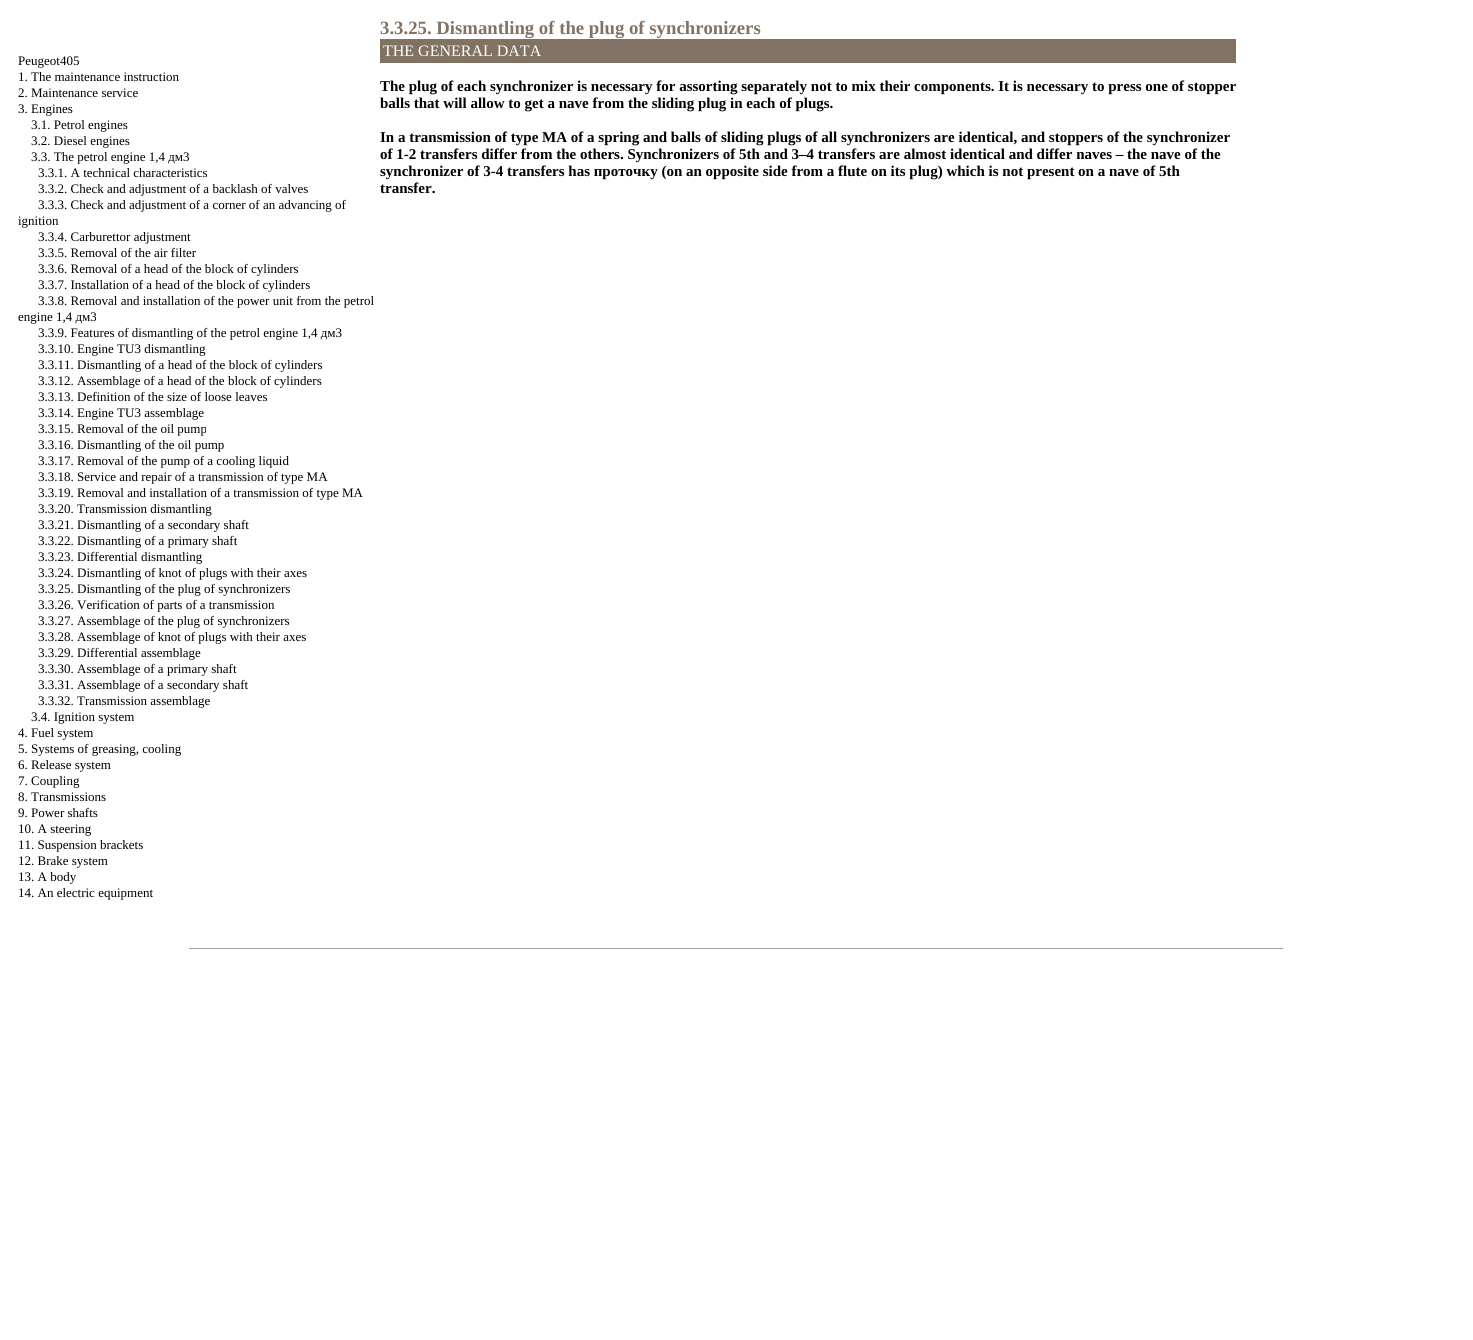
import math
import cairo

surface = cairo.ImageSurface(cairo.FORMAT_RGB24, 1473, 1340)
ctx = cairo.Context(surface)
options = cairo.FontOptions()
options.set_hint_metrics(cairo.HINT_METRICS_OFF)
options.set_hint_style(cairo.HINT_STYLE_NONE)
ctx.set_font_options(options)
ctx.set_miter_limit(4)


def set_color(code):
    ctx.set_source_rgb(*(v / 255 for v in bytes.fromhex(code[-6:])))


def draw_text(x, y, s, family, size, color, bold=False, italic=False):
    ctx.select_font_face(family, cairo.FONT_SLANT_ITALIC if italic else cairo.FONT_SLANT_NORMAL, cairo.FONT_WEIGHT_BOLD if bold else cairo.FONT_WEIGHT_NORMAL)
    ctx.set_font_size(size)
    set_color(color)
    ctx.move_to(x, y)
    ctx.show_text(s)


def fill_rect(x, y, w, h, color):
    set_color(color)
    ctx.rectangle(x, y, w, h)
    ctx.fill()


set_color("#ffffff")
ctx.paint()
draw_text(18, 65, "Peugeot405", "Liberation Serif", 13, "#000000")
draw_text(18, 81, "1. The maintenance instruction", "Liberation Serif", 13, "#000000")
draw_text(18, 97, "2. Maintenance service", "Liberation Serif", 13, "#000000")
draw_text(18, 113, "3. Engines", "Liberation Serif", 13, "#000000")
draw_text(31, 129, "3.1. Petrol engines", "Liberation Serif", 13, "#000000")
draw_text(31, 145, "3.2. Diesel engines", "Liberation Serif", 13, "#000000")
draw_text(31, 161, "3.3. The petrol engine 1,4 дм3", "Liberation Serif", 13, "#000000")
draw_text(38, 177, "3.3.1. A technical characteristics", "Liberation Serif", 13, "#000000")
draw_text(38, 193, "3.3.2. Check and adjustment of a backlash of valves", "Liberation Serif", 13, "#000000")
draw_text(38, 209, "3.3.3. Check and adjustment of a corner of an advancing of", "Liberation Serif", 13, "#000000")
draw_text(18, 225, "ignition", "Liberation Serif", 13, "#000000")
draw_text(38, 241, "3.3.4. Carburettor adjustment", "Liberation Serif", 13, "#000000")
draw_text(38, 257, "3.3.5. Removal of the air filter", "Liberation Serif", 13, "#000000")
draw_text(38, 273, "3.3.6. Removal of a head of the block of cylinders", "Liberation Serif", 13, "#000000")
draw_text(38, 289, "3.3.7. Installation of a head of the block of cylinders", "Liberation Serif", 13, "#000000")
draw_text(38, 305, "3.3.8. Removal and installation of the power unit from the petrol", "Liberation Serif", 13, "#000000")
draw_text(18, 321, "engine 1,4 дм3", "Liberation Serif", 13, "#000000")
draw_text(38, 337, "3.3.9. Features of dismantling of the petrol engine 1,4 дм3", "Liberation Serif", 13, "#000000")
draw_text(38, 353, "3.3.10. Engine TU3 dismantling", "Liberation Serif", 13, "#000000")
draw_text(38, 369, "3.3.11. Dismantling of a head of the block of cylinders", "Liberation Serif", 13, "#000000")
draw_text(38, 385, "3.3.12. Assemblage of a head of the block of cylinders", "Liberation Serif", 13, "#000000")
draw_text(38, 401, "3.3.13. Definition of the size of loose leaves", "Liberation Serif", 13, "#000000")
draw_text(38, 417, "3.3.14. Engine TU3 assemblage", "Liberation Serif", 13, "#000000")
draw_text(38, 433, "3.3.15. Removal of the oil pump", "Liberation Serif", 13, "#000000")
draw_text(38, 449, "3.3.16. Dismantling of the oil pump", "Liberation Serif", 13, "#000000")
draw_text(38, 465, "3.3.17. Removal of the pump of a cooling liquid", "Liberation Serif", 13, "#000000")
draw_text(38, 481, "3.3.18. Service and repair of a transmission of type МА", "Liberation Serif", 13, "#000000")
draw_text(38, 497, "3.3.19. Removal and installation of a transmission of type МА", "Liberation Serif", 13, "#000000")
draw_text(38, 513, "3.3.20. Transmission dismantling", "Liberation Serif", 13, "#000000")
draw_text(38, 529, "3.3.21. Dismantling of a secondary shaft", "Liberation Serif", 13, "#000000")
draw_text(38, 545, "3.3.22. Dismantling of a primary shaft", "Liberation Serif", 13, "#000000")
draw_text(38, 561, "3.3.23. Differential dismantling", "Liberation Serif", 13, "#000000")
draw_text(38, 577, "3.3.24. Dismantling of knot of plugs with their axes", "Liberation Serif", 13, "#000000")
draw_text(38, 593, "3.3.25. Dismantling of the plug of synchronizers", "Liberation Serif", 13, "#000000")
draw_text(38, 609, "3.3.26. Verification of parts of a transmission", "Liberation Serif", 13, "#000000")
draw_text(38, 625, "3.3.27. Assemblage of the plug of synchronizers", "Liberation Serif", 13, "#000000")
draw_text(38, 641, "3.3.28. Assemblage of knot of plugs with their axes", "Liberation Serif", 13, "#000000")
draw_text(38, 657, "3.3.29. Differential assemblage", "Liberation Serif", 13, "#000000")
draw_text(38, 673, "3.3.30. Assemblage of a primary shaft", "Liberation Serif", 13, "#000000")
draw_text(38, 689, "3.3.31. Assemblage of a secondary shaft", "Liberation Serif", 13, "#000000")
draw_text(38, 705, "3.3.32. Transmission assemblage", "Liberation Serif", 13, "#000000")
draw_text(31, 721, "3.4. Ignition system", "Liberation Serif", 13, "#000000")
draw_text(18, 737, "4. Fuel system", "Liberation Serif", 13, "#000000")
draw_text(18, 753, "5. Systems of greasing, cooling", "Liberation Serif", 13, "#000000")
draw_text(18, 769, "6. Release system", "Liberation Serif", 13, "#000000")
draw_text(18, 785, "7. Coupling", "Liberation Serif", 13, "#000000")
draw_text(18, 801, "8. Transmissions", "Liberation Serif", 13, "#000000")
draw_text(18, 817, "9. Power shafts", "Liberation Serif", 13, "#000000")
draw_text(18, 833, "10. A steering", "Liberation Serif", 13, "#000000")
draw_text(18, 849, "11. Suspension brackets", "Liberation Serif", 13, "#000000")
draw_text(18, 865, "12. Brake system", "Liberation Serif", 13, "#000000")
draw_text(18, 881, "13. A body", "Liberation Serif", 13, "#000000")
draw_text(18, 897, "14. An electric equipment", "Liberation Serif", 13, "#000000")
draw_text(380, 34, "3.3.25. Dismantling of the plug of synchronizers", "Liberation Serif", 18.75, "#827264", bold=True)
fill_rect(380, 39, 856, 24, "#827264")
draw_text(383, 56, "THE GENERAL DATA", "Liberation Serif", 16, "#ffffff")
draw_text(380, 91, "The plug of each synchronizer is necessary for assorting separately not to mix their components. It is necessary to press one of stopper", "Liberation Serif", 15, "#000000", bold=True)
draw_text(380, 108, "balls that will allow to get a nave from the sliding plug in each of plugs.", "Liberation Serif", 15, "#000000", bold=True)
draw_text(380, 142, "In a transmission of type МА of a spring and balls of sliding plugs of all synchronizers are identical, and stoppers of the synchronizer", "Liberation Serif", 15, "#000000", bold=True)
draw_text(380, 159, "of 1-2 transfers differ from the others. Synchronizers of 5th and 3–4 transfers are almost identical and differ naves – the nave of the", "Liberation Serif", 15, "#000000", bold=True)
draw_text(380, 176, "synchronizer of 3-4 transfers has проточку (on an opposite side from a flute on its plug) which is not present on a nave of 5th", "Liberation Serif", 15, "#000000", bold=True)
draw_text(380, 193, "transfer.", "Liberation Serif", 15, "#000000", bold=True)
fill_rect(189, 948, 1095, 1, "#9f9f9f")
fill_rect(1283, 948, 1, 1, "#eeeeee")
surface.write_to_png("output.png")
